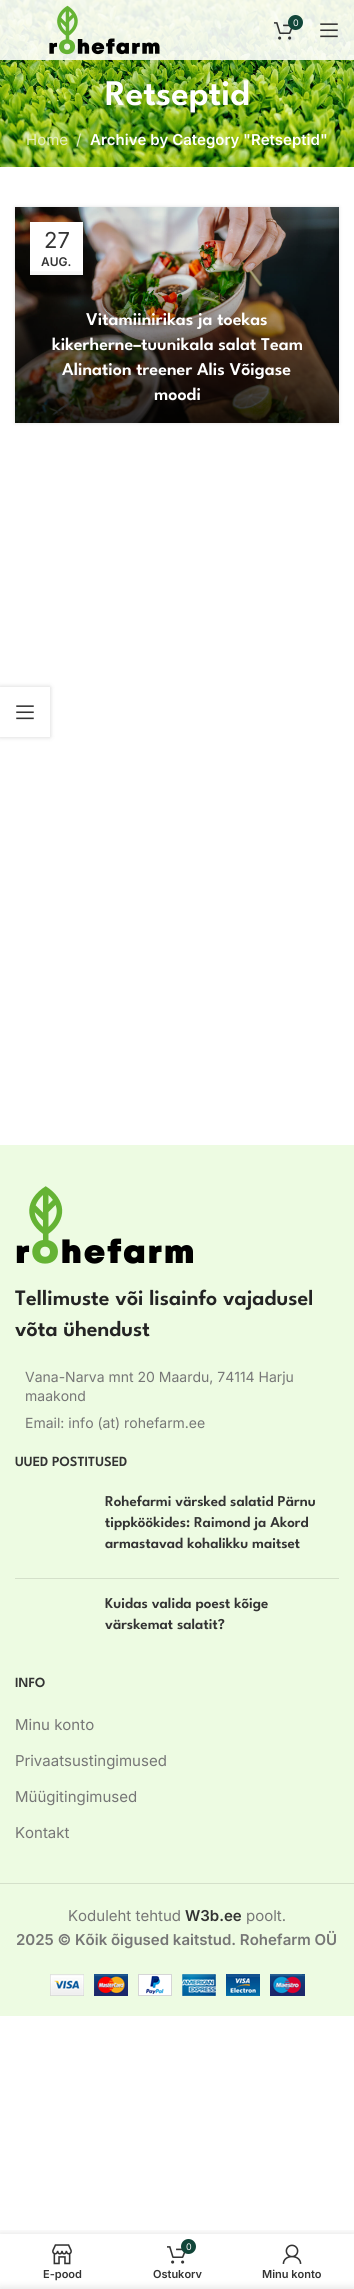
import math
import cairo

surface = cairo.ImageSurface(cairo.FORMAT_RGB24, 354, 2289)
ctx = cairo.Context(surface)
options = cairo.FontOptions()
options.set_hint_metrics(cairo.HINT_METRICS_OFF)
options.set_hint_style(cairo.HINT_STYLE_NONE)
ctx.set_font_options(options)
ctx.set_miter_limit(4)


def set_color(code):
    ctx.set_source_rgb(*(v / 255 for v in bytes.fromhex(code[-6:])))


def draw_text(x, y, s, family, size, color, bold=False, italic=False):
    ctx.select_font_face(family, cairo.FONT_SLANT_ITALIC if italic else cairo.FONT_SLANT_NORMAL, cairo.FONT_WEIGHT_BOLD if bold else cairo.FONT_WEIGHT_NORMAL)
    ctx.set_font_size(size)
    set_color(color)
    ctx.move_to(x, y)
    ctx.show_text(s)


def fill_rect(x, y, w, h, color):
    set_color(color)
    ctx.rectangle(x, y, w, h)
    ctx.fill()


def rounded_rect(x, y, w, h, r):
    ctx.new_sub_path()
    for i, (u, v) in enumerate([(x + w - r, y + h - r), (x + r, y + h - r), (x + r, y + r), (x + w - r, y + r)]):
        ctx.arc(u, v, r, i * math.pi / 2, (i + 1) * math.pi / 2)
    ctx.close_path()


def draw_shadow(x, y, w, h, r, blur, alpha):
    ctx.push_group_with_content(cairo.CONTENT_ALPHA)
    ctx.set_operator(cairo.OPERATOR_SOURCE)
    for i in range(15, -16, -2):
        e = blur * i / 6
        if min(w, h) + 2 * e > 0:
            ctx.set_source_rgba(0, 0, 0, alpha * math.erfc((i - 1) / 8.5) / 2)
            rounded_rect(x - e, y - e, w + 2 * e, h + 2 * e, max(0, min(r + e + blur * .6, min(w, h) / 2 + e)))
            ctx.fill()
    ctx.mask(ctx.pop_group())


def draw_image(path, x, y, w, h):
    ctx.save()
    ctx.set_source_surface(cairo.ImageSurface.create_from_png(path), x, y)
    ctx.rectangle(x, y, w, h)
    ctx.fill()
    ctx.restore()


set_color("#ffffff")
ctx.paint()
draw_image("assets/img4.png", 0, 0, 354, 167)
ctx.save()
ctx.rectangle(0, 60, 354, 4)
ctx.clip()
set_color("#000000")
draw_shadow(0, 1, 354, 60, 0, 4, 0.1)
ctx.restore()
ctx.set_source_rgba(1, 1, 1, 0.9)
ctx.rectangle(0, 0, 354, 60)
ctx.fill()
draw_image("assets/img1.png", 49, 5, 111, 50)
draw_image("assets/img2.png", 274, 22, 19, 18)
set_color("#114639")
ctx.arc(295.5, 22.5, 7.5, 0, 2 * math.pi)
ctx.fill()
draw_text(293, 26, "0", "Inter", 9, "#ffffff")
draw_image("assets/img3.png", 320, 23, 18, 15)
draw_text(105, 105, "Retseptid", "League Spartan SemiBold", 36, "#ffffff")
draw_text(26, 145, "Home", "Inter", 15, "#e3eec3")
draw_text(76, 145, "/", "Inter", 15, "#e4eed4")
draw_text(90, 145, "Archive by Category \"Retseptid\"", "Inter SemiBold", 15, "#ffffff")
set_color("#000000")
draw_shadow(15, 207, 324, 216, 0, 2, 0.12)
draw_image("assets/img5.png", 15, 207, 324, 216)
draw_shadow(30, 222, 53, 53, 0, 4.5, 0.1)
fill_rect(30, 222, 53, 53, "#ffffff")
draw_text(44, 248, "27", "Inter", 22, "#333333")
draw_text(41, 266, "AUG.", "Inter SemiBold", 12, "#333333")
gradient = cairo.LinearGradient(177, 258, 177, 423)
gradient.add_color_stop_rgba(0.05, 0, 0, 0, 0)
gradient.add_color_stop_rgba(0.5, 0, 0, 0, 0.35)
gradient.add_color_stop_rgba(1, 0, 0, 0, 0.8)
ctx.set_source(gradient)
ctx.rectangle(15, 271, 324, 152)
ctx.fill()
draw_text(86, 325, "Vitamiinirikas ja toekas", "League Spartan SemiBold", 18, "#ffffff")
draw_text(52, 350, "kikerherne–tuunikala salat Team", "League Spartan SemiBold", 18, "#ffffff")
draw_text(62, 375, "Alination treener Alis Võigase", "League Spartan SemiBold", 18, "#ffffff")
draw_text(154, 400, "moodi", "League Spartan SemiBold", 18, "#ffffff")
fill_rect(0, 1145, 354, 871, "#edfbe2")
draw_image("assets/img6.png", 16, 1186, 177, 78)
draw_text(15, 1305, "Tellimuste või lisainfo vajadusel", "League Spartan SemiBold", 22, "#242424")
draw_text(15, 1336, "võta ühendust", "League Spartan SemiBold", 22, "#242424")
draw_text(25, 1382, "Vana-Narva mnt 20 Maardu, 74114 Harju", "Inter", 14, "#767676")
draw_text(25, 1401, "maakond", "Inter", 14, "#767676")
draw_text(25, 1428, "Email: info (at) rohefarm.ee", "Inter", 14, "#767676")
draw_text(15, 1466, "UUED POSTITUSED", "League Spartan SemiBold", 14, "#333333")
fill_rect(15, 1578, 324, 1, "#d4e0ca")
draw_text(105, 1506, "Rohefarmi värsked salatid Pärnu", "League Spartan SemiBold", 15, "#333333")
draw_text(105, 1527, "tippköökides: Raimond ja Akord", "League Spartan SemiBold", 15, "#333333")
draw_text(105, 1548, "armastavad kohalikku maitset", "League Spartan SemiBold", 15, "#333333")
draw_text(105, 1608, "Kuidas valida poest kõige", "League Spartan SemiBold", 15, "#333333")
draw_text(105, 1629, "värskemat salatit?", "League Spartan SemiBold", 15, "#333333")
draw_text(15, 1687, "INFO", "League Spartan SemiBold", 14, "#333333")
draw_text(15, 1730, "Minu konto", "Inter", 15, "#767676")
draw_text(15, 1766, "Privaatsustingimused", "Inter", 15, "#767676")
draw_text(15, 1802, "Müügitingimused", "Inter", 15, "#767676")
draw_text(15, 1838, "Kontakt", "Inter", 15, "#767676")
fill_rect(0, 1883, 354, 1, "#d4e0ca")
draw_text(68, 1921, "Koduleht tehtud", "Inter", 15, "#767676")
draw_text(185, 1921, "W3b.ee", "Inter SemiBold", 15, "#333333")
draw_text(246, 1921, "poolt.", "Inter", 15, "#767676")
draw_text(16, 1945, "2025 © Kõik õigused kaitstud. Rohefarm OÜ", "Inter SemiBold", 15, "#767676")
draw_image("assets/img7.png", 50, 1974, 255, 22)
ctx.save()
ctx.set_fill_rule(cairo.FILL_RULE_EVEN_ODD)
ctx.new_path()
ctx.move_to(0, 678)
ctx.line_to(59, 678)
ctx.line_to(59, 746)
ctx.line_to(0, 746)
ctx.close_path()
ctx.move_to(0, 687)
ctx.line_to(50, 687)
ctx.line_to(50, 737)
ctx.line_to(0, 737)
ctx.close_path()
ctx.clip()
set_color("#000000")
draw_shadow(0, 687, 50, 50, 0, 2.5, 0.17)
ctx.restore()
draw_image("assets/img8.png", 16, 705, 18, 15)
ctx.save()
ctx.rectangle(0, 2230, 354, 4)
ctx.clip()
set_color("#000000")
draw_shadow(0, 2234, 354, 55, 0, 4.5, 0.12)
ctx.restore()
draw_image("assets/img9.png", 52, 2244, 20, 21)
draw_text(43, 2278, "E-pood", "Inter SemiBold", 11, "#333333")
draw_image("assets/img10.png", 167, 2246, 19, 18)
set_color("#114639")
ctx.arc(188.5, 2246.5, 7.5, 0, 2 * math.pi)
ctx.fill()
draw_text(186, 2250, "0", "Inter", 9, "#ffffff")
draw_text(153, 2278, "Ostukorv", "Inter SemiBold", 11, "#333333")
draw_image("assets/img11.png", 282, 2244, 20, 20)
draw_text(262, 2278, "Minu konto", "Inter SemiBold", 11, "#333333")
set_color("#000000")
draw_shadow(0, 2289, 354, 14, 0, 4.5, 0.14)
surface.write_to_png("output.png")
